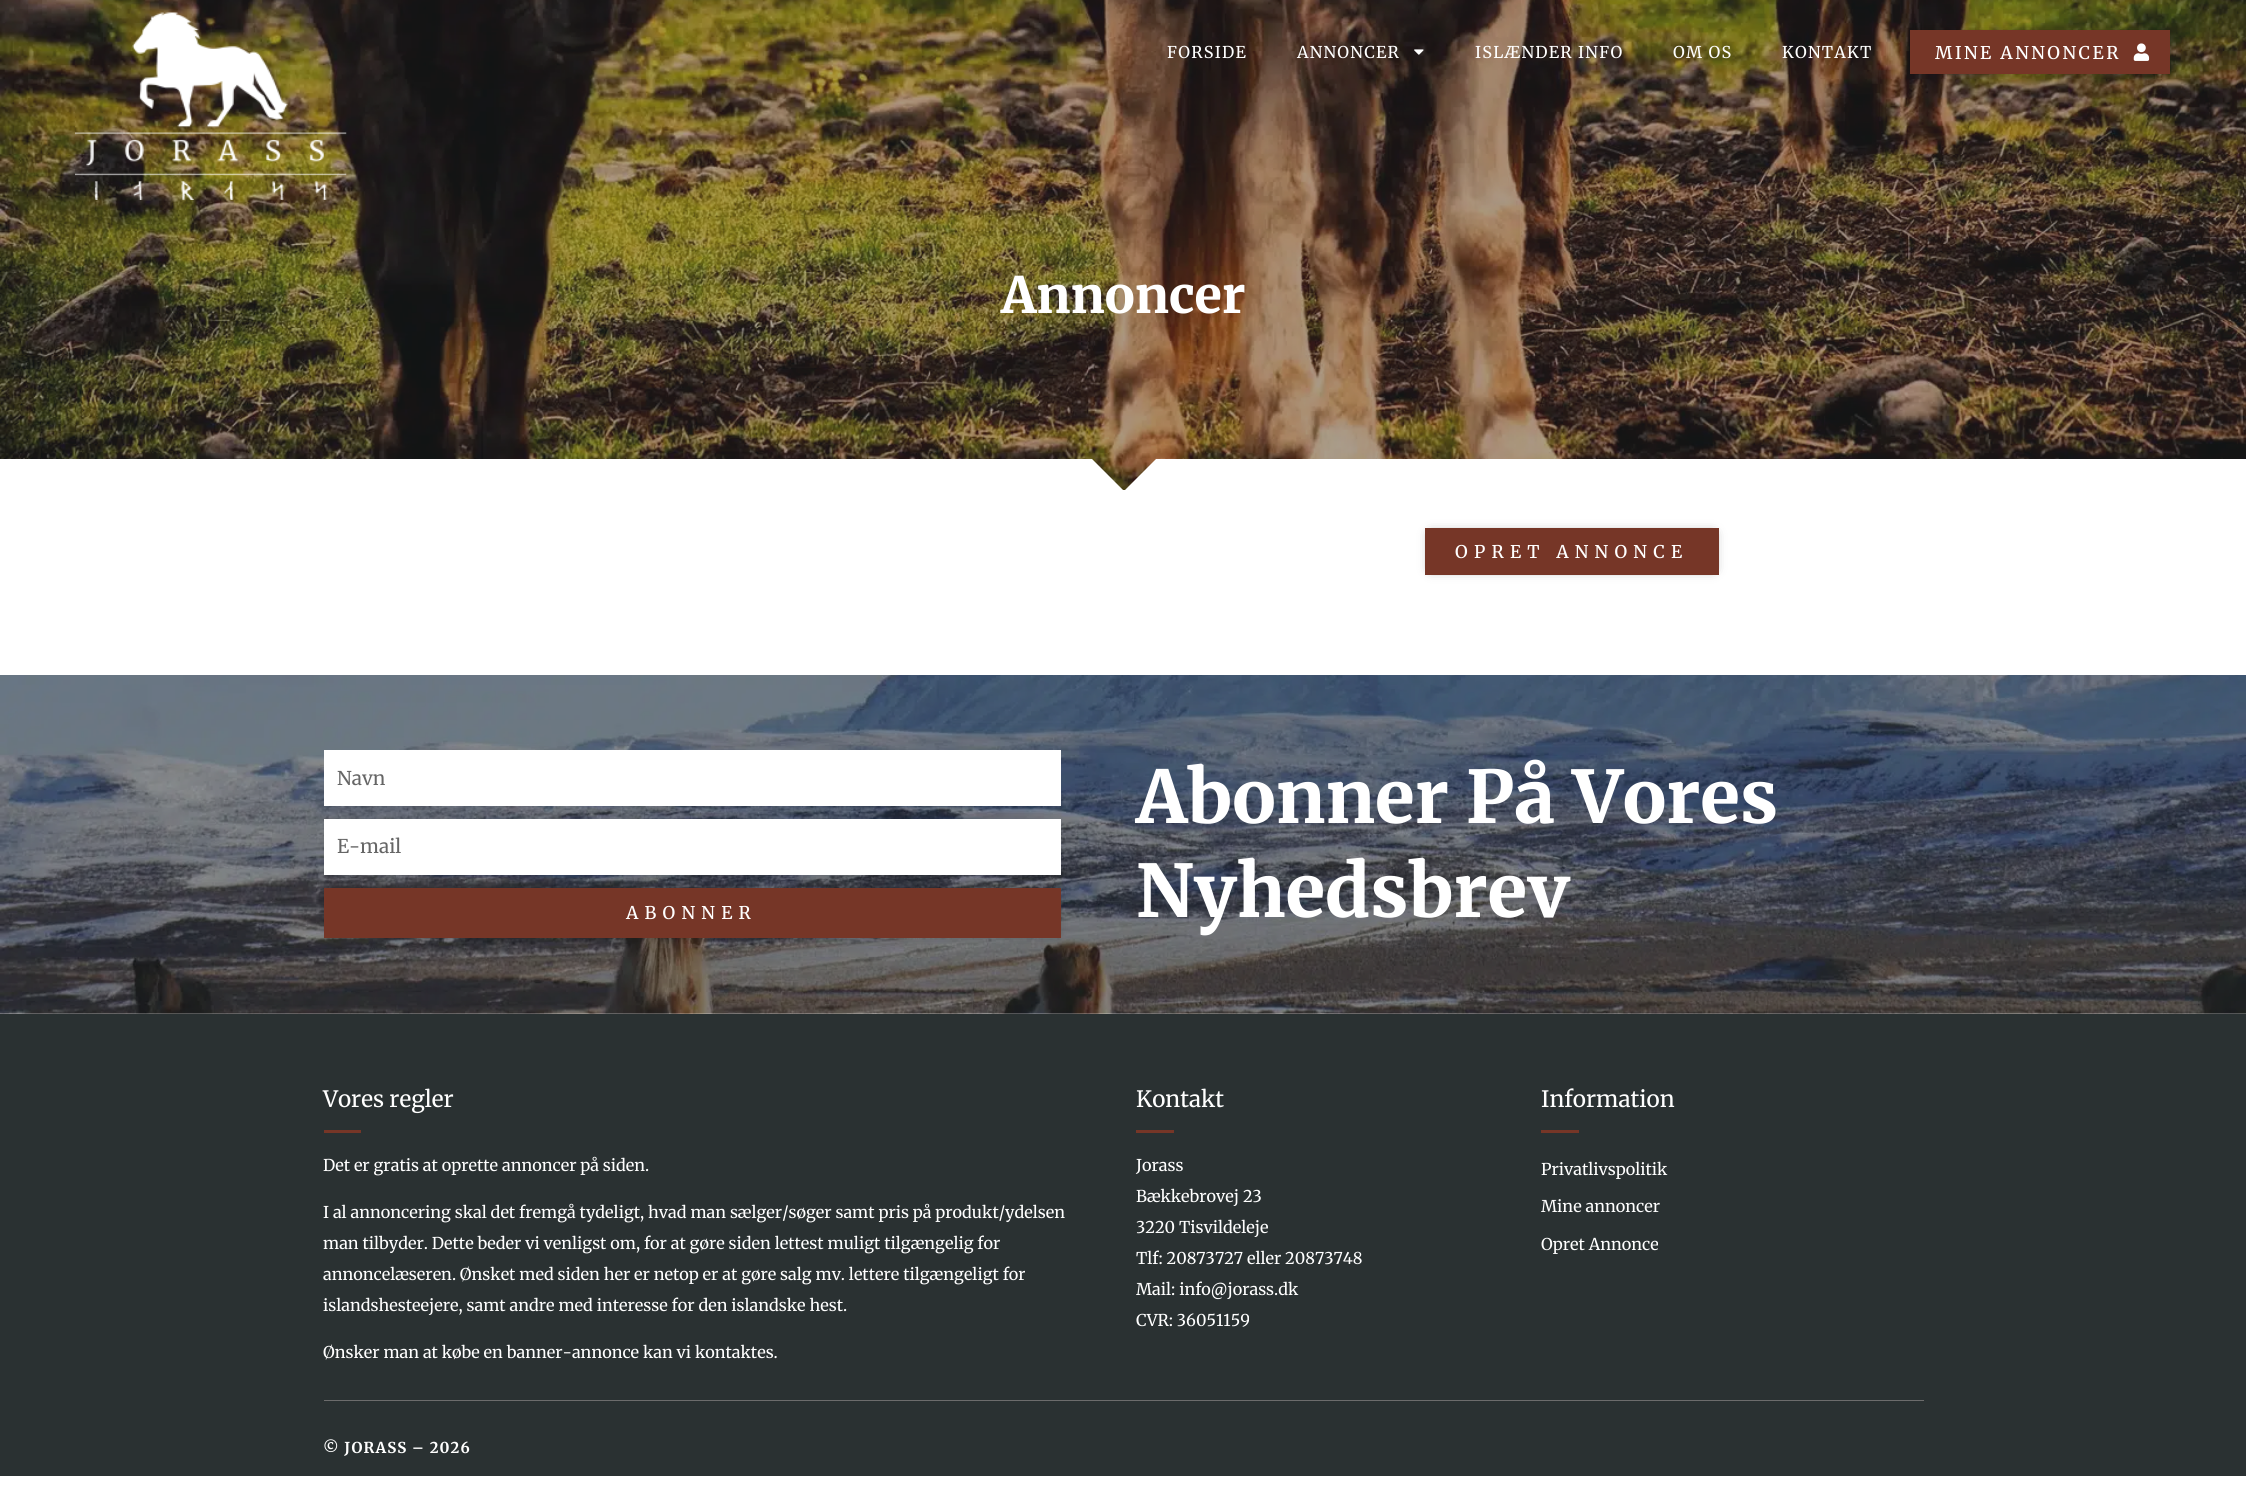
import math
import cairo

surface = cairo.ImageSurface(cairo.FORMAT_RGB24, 2246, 1511)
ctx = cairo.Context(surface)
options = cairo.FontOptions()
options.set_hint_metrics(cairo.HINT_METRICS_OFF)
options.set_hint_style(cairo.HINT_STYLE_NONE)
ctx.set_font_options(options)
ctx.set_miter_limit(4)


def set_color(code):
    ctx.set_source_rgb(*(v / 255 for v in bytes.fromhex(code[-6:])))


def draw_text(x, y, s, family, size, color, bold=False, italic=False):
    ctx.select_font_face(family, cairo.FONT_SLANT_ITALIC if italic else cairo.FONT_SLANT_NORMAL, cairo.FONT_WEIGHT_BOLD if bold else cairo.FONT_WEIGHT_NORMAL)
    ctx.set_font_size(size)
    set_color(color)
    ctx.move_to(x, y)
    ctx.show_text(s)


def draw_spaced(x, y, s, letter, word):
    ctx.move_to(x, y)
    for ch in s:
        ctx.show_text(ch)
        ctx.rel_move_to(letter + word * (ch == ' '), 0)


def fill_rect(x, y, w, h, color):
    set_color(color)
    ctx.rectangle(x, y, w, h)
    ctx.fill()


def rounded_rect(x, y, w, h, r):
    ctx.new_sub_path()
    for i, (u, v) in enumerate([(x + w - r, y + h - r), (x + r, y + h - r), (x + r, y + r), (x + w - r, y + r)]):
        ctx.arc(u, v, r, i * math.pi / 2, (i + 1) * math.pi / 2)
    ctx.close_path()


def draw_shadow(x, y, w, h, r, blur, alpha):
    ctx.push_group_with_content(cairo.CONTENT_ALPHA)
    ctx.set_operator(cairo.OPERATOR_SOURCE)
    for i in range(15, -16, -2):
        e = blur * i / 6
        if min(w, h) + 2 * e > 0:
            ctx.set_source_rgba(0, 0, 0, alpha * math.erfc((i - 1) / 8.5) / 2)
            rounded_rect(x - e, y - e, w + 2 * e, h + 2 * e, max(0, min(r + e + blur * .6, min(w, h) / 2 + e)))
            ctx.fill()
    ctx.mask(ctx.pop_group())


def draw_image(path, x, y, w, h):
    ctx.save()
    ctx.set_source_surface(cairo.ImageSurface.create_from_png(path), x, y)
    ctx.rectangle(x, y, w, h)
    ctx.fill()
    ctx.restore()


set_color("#ffffff")
ctx.paint()
draw_image("assets/img4.png", 0, 0, 2246, 490)
draw_image("assets/img1.png", 75, 12, 272, 188)
ctx.select_font_face("Merriweather")
ctx.set_font_size(16.25)
set_color("#ffffff")
draw_spaced(1167, 58, "FORSIDE", 1.25, 0)
draw_spaced(1297, 58, "ANNONCER", 1.25, 0)
draw_image("assets/img2.png", 1414, 49, 10, 6)
draw_spaced(1475, 58, "ISLÆNDER INFO", 1.25, 0)
draw_spaced(1673, 58, "OM OS", 1.25, 0)
draw_spaced(1782, 58, "KONTAKT", 1.25, 0)
set_color("#000000")
draw_shadow(1916, 36, 248, 32, 0, 6, 0.5)
fill_rect(1910, 30, 260, 44, "#763627")
ctx.select_font_face("Merriweather Medium")
ctx.set_font_size(17.5)
set_color("#ffffff")
draw_spaced(1935, 59, "MINE ANNONCER", 2.5, 0)
draw_image("assets/img3.png", 2133, 43, 17, 18)
draw_text(1001, 313, "Annoncer", "Merriweather ExtraBold", 50, "#ffffff")
ctx.new_path()
ctx.move_to(1156, 459)
ctx.line_to(1124, 491)
ctx.line_to(1092, 459)
ctx.line_to(0, 459)
ctx.line_to(0, 491)
ctx.line_to(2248, 491)
ctx.line_to(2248, 459)
ctx.fill()
set_color("#000000")
draw_shadow(1431, 534, 282, 35, 0, 6, 0.5)
fill_rect(1425, 528, 294, 47, "#763627")
ctx.select_font_face("Merriweather Medium")
ctx.set_font_size(17.5)
set_color("#ffffff")
draw_spaced(1455, 558, "OPRET ANNONCE", 6.25, 0)
draw_image("assets/img5.png", 0, 675, 2246, 339)
fill_rect(324, 750, 737, 56, "#ffffff")
draw_text(337, 785, "Navn", "Merriweather", 19, "#666666")
fill_rect(324, 819, 737, 56, "#ffffff")
draw_text(337, 853, "E-mail", "Merriweather", 19, "#666666")
set_color("#000000")
draw_shadow(330, 894, 725, 37, 0, 6, 0.5)
fill_rect(324, 888, 737, 50, "#763627")
ctx.select_font_face("Merriweather Medium")
ctx.set_font_size(17.5)
set_color("#ffffff")
draw_spaced(626, 919, "ABONNER", 6.25, 0)
draw_text(1136, 823, "Abonner På Vores", "Merriweather ExtraBold", 72.5, "#ffffff")
draw_text(1136, 917, "Nyhedsbrev", "Merriweather ExtraBold", 72.5, "#ffffff")
fill_rect(0, 1014, 2246, 462, "#2a3132")
draw_text(323, 1107, "Vores regler", "Merriweather", 22.5, "#ffffff")
fill_rect(324, 1130, 37, 3, "#763627")
draw_text(323, 1171, "Det er gratis at oprette annoncer på siden.", "Merriweather", 16.25, "#ffffff")
draw_text(323, 1218, "I al annoncering skal det fremgå tydeligt, hvad man sælger/søger samt pris på produkt/ydelsen", "Merriweather", 16.25, "#ffffff")
draw_text(323, 1249, "man tilbyder. Dette beder vi venligst om, for at gøre siden lettest muligt tilgængelig for", "Merriweather", 16.25, "#ffffff")
draw_text(323, 1280, "annoncelæseren. Ønsket med siden her er netop er at gøre salg mv. lettere tilgængeligt for", "Merriweather", 16.25, "#ffffff")
draw_text(323, 1311, "islandshesteejere, samt andre med interesse for den islandske hest.", "Merriweather", 16.25, "#ffffff")
draw_text(323, 1358, "Ønsker man at købe en banner-annonce kan vi kontaktes.", "Merriweather", 16.25, "#ffffff")
draw_text(1136, 1107, "Kontakt", "Merriweather", 22.5, "#ffffff")
fill_rect(1136, 1130, 38, 3, "#763627")
draw_text(1136, 1171, "Jorass", "Merriweather", 16.25, "#ffffff")
draw_text(1136, 1202, "Bækkebrovej 23", "Merriweather", 16.25, "#ffffff")
draw_text(1136, 1233, "3220 Tisvildeleje", "Merriweather", 16.25, "#ffffff")
draw_text(1136, 1264, "Tlf: 20873727 eller 20873748", "Merriweather", 16.25, "#ffffff")
draw_text(1136, 1295, "Mail: info@jorass.dk", "Merriweather", 16.25, "#ffffff")
draw_text(1136, 1326, "CVR: 36051159", "Merriweather", 16.25, "#ffffff")
draw_text(1541, 1107, "Information", "Merriweather", 22.5, "#ffffff")
fill_rect(1541, 1130, 38, 3, "#763627")
draw_text(1541, 1175, "Privatlivspolitik", "Merriweather", 16.25, "#ffffff")
draw_text(1541, 1212, "Mine annoncer", "Merriweather", 16.25, "#ffffff")
draw_text(1541, 1250, "Opret Annonce", "Merriweather", 16.25, "#ffffff")
fill_rect(324, 1400, 1600, 1, "#6c6c6c")
ctx.select_font_face("Merriweather", cairo.FONT_SLANT_NORMAL, cairo.FONT_WEIGHT_BOLD)
ctx.set_font_size(15)
set_color("#ffffff")
draw_spaced(323, 1453, "© JORASS – 2026", 1.1, 0)
surface.write_to_png("output.png")
